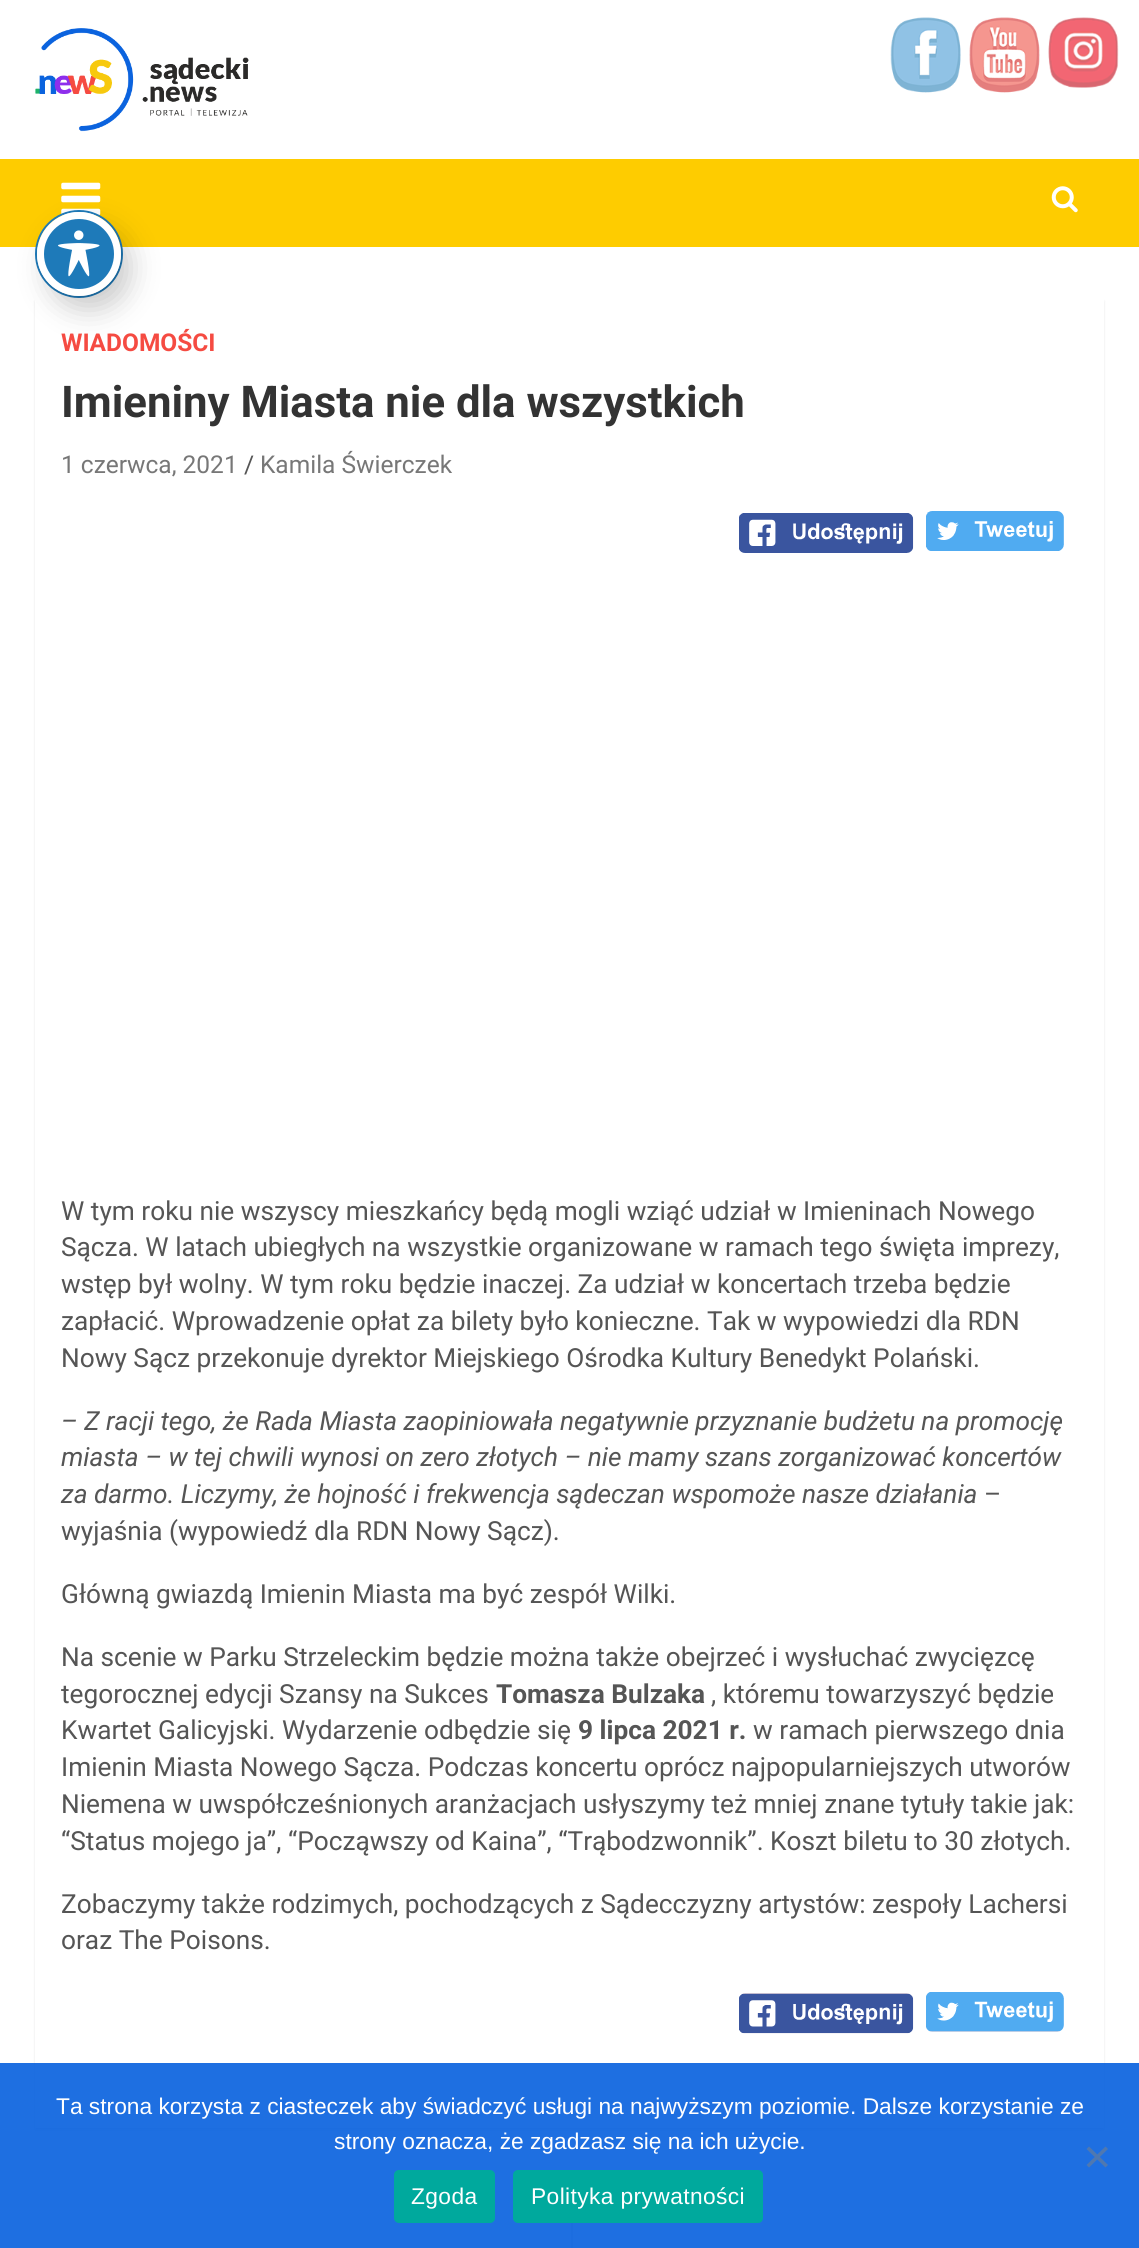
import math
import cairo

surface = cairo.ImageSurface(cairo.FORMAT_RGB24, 1139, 2248)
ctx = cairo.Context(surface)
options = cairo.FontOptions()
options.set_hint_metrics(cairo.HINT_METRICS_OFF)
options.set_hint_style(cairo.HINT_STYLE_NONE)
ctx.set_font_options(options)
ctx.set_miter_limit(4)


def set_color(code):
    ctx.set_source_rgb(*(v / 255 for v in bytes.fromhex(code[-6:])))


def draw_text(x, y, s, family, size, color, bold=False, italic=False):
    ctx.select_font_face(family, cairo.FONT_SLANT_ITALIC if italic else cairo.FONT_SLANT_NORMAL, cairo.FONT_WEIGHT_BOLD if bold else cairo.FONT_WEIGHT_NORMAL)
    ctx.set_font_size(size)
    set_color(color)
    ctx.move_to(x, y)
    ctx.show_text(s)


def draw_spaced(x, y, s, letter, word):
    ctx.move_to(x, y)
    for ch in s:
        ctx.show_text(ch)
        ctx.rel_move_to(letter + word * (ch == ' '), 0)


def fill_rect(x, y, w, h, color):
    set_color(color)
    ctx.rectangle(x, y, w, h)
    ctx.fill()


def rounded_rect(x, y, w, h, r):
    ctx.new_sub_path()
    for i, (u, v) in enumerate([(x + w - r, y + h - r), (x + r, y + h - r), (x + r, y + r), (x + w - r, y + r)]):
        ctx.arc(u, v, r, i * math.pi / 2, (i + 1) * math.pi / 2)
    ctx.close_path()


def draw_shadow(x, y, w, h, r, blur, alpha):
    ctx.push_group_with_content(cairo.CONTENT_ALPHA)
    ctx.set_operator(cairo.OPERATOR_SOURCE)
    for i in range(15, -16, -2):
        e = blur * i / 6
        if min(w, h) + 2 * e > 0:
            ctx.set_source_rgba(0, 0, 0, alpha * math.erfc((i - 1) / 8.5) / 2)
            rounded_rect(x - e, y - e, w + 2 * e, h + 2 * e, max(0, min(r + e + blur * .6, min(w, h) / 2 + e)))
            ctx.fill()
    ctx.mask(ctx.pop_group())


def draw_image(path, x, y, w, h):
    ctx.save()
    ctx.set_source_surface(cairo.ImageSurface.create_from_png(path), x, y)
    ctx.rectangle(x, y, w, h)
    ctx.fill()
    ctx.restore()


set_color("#ffffff")
ctx.paint()
draw_image("assets/img1.png", 890, 17, 71, 76)
draw_image("assets/img2.png", 969, 17, 71, 76)
draw_image("assets/img3.png", 1048, 17, 71, 71)
fill_rect(0, 159, 1139, 88, "#fecc00")
draw_image("assets/img6.png", 61, 182, 40, 34)
ctx.save()
ctx.set_fill_rule(cairo.FILL_RULE_EVEN_ODD)
ctx.new_path()
ctx.move_to(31, 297)
ctx.line_to(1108, 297)
ctx.line_to(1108, 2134)
ctx.line_to(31, 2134)
ctx.close_path()
ctx.move_to(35, 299)
ctx.line_to(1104, 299)
ctx.line_to(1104, 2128)
ctx.line_to(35, 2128)
ctx.close_path()
ctx.clip()
set_color("#000000")
draw_shadow(35, 301, 1069, 1829, 0, 1, 0.1)
ctx.restore()
ctx.arc(79, 254, 43, 0, 2 * math.pi)
set_color("#1e7ab9")
ctx.stroke()
set_color("#000000")
draw_shadow(47, 226, 84, 84, 42, 14, 0.2)
set_color("#1e7ab9")
ctx.arc(79, 254, 38.5, 0, 2 * math.pi)
ctx.fill_preserve()
set_color("#ffffff")
ctx.set_line_width(7)
ctx.stroke()
draw_image("assets/img4.png", 58, 230, 42, 47)
draw_image("assets/img5.png", 35, 28, 214, 104)
draw_image("assets/img7.png", 1051, 186, 27, 27)
draw_text(61, 351, "WIADOMOŚCI", "Roboto", 24.5, "#f54b42", bold=True)
draw_text(61, 417, "Imieniny Miasta nie dla wszystkich", "Roboto", 43.75, "#333333", bold=True)
draw_text(61, 473, "1 czerwca, 2021", "Roboto", 24.5, "#777777")
draw_text(244, 473, "/", "Roboto", 24.5, "#555555")
draw_text(260, 473, "Kamila Świerczek", "Roboto", 24.5, "#777777")
draw_image("assets/img8.png", 739, 513, 175, 40)
draw_image("assets/img9.png", 926, 511, 138, 40)
draw_text(61, 1220, "W tym roku nie wszyscy mieszkańcy będą mogli wziąć udział w Imieninach Nowego", "Roboto", 26.25, "#555555")
draw_text(61, 1256, "Sącza. W latach ubiegłych na wszystkie organizowane w ramach tego święta imprezy,", "Roboto", 26.25, "#555555")
draw_text(61, 1293, "wstęp był wolny. W tym roku będzie inaczej. Za udział w koncertach trzeba będzie", "Roboto", 26.25, "#555555")
draw_text(61, 1330, "zapłacić. Wprowadzenie opłat za bilety było konieczne. Tak w wypowiedzi dla RDN", "Roboto", 26.25, "#555555")
draw_text(61, 1367, "Nowy Sącz przekonuje dyrektor Miejskiego Ośrodka Kultury Benedykt Polański.", "Roboto", 26.25, "#555555")
draw_text(61, 1430, "– Z racji tego, że Rada Miasta zaopiniowała negatywnie przyznanie budżetu na promocję", "Roboto", 26.25, "#555555", italic=True)
draw_text(61, 1466, "miasta – w tej chwili wynosi on zero złotych – nie mamy szans zorganizować koncertów", "Roboto", 26.25, "#555555", italic=True)
draw_text(61, 1503, "za darmo. Liczymy, że hojność i frekwencja sądeczan wspomoże nasze działania", "Roboto", 26.25, "#555555", italic=True)
draw_text(984, 1503, "–", "Roboto", 26.25, "#555555")
draw_text(61, 1540, "wyjaśnia (wypowiedź dla RDN Nowy Sącz).", "Roboto", 26.25, "#555555")
draw_text(61, 1603, "Główną gwiazdą Imienin Miasta ma być zespół Wilki.", "Roboto", 26.25, "#555555")
draw_text(61, 1666, "Na scenie w Parku Strzeleckim będzie można także obejrzeć i wysłuchać zwycięzcę", "Roboto", 26.25, "#555555")
draw_text(61, 1703, "tegorocznej edycji Szansy na Sukces", "Roboto", 26.25, "#555555")
draw_text(496, 1703, "Tomasza Bulzaka", "Roboto", 26.25, "#555555", bold=True)
draw_text(711, 1703, ", któremu towarzyszyć będzie", "Roboto", 26.25, "#555555")
draw_text(61, 1739, "Kwartet Galicyjski. Wydarzenie odbędzie się", "Roboto", 26.25, "#555555")
draw_text(578, 1739, "9 lipca 2021 r.", "Roboto", 26.25, "#555555", bold=True)
draw_text(753, 1739, "w ramach pierwszego dnia", "Roboto", 26.25, "#555555")
draw_text(61, 1776, "Imienin Miasta Nowego Sącza. Podczas koncertu oprócz najpopularniejszych utworów", "Roboto", 26.25, "#555555")
draw_text(61, 1813, "Niemena w uwspółcześnionych aranżacjach usłyszymy też mniej znane tytuły takie jak:", "Roboto", 26.25, "#555555")
draw_text(61, 1850, "“Status mojego ja”, “Począwszy od Kaina”, “Trąbodzwonnik”. Koszt biletu to 30 złotych.", "Roboto", 26.25, "#555555")
draw_text(61, 1913, "Zobaczymy także rodzimych, pochodzących z Sądecczyzny artystów: zespoły Lachersi", "Roboto", 26.25, "#555555")
draw_text(61, 1949, "oraz The Poisons.", "Roboto", 26.25, "#555555")
draw_image("assets/img10.png", 739, 1993, 175, 41)
draw_image("assets/img11.png", 926, 1992, 138, 40)
fill_rect(571, 2223, 2, 25, "#e6e6e6")
ctx.set_source_rgba(0.043, 0.388, 0.871, 0.92)
ctx.rectangle(0, 2063, 1139, 185)
ctx.fill()
draw_text(56, 2114, "Ta strona korzysta z ciasteczek aby świadczyć usługi na najwyższym poziomie. Dalsze korzystanie ze", "Liberation Sans", 22.75, "#ffffff")
draw_text(334, 2149, "strony oznacza, że zgadzasz się na ich użycie.", "Liberation Sans", 22.75, "#ffffff")
set_color("#4f78b0")
ctx.new_path()
ctx.move_to(1105.5, 2146.5)
ctx.line_to(1108, 2149)
ctx.line_to(1089, 2167.5)
ctx.line_to(1086.5, 2165)
ctx.close_path()
ctx.fill()
ctx.new_path()
ctx.move_to(1086.5, 2149)
ctx.line_to(1089, 2146.5)
ctx.line_to(1108, 2165)
ctx.line_to(1105.5, 2167.5)
ctx.close_path()
ctx.fill()
set_color("#00a99d")
rounded_rect(394, 2170, 101, 53, 5)
ctx.fill()
set_color("#ffffff")
draw_spaced(411, 2204, "Zgoda", 0.4, 0)
set_color("#00a99d")
rounded_rect(513, 2170, 250, 53, 5)
ctx.fill()
set_color("#ffffff")
draw_spaced(531, 2204, "Polityka prywatności", 0.4, 0)
surface.write_to_png("output.png")
